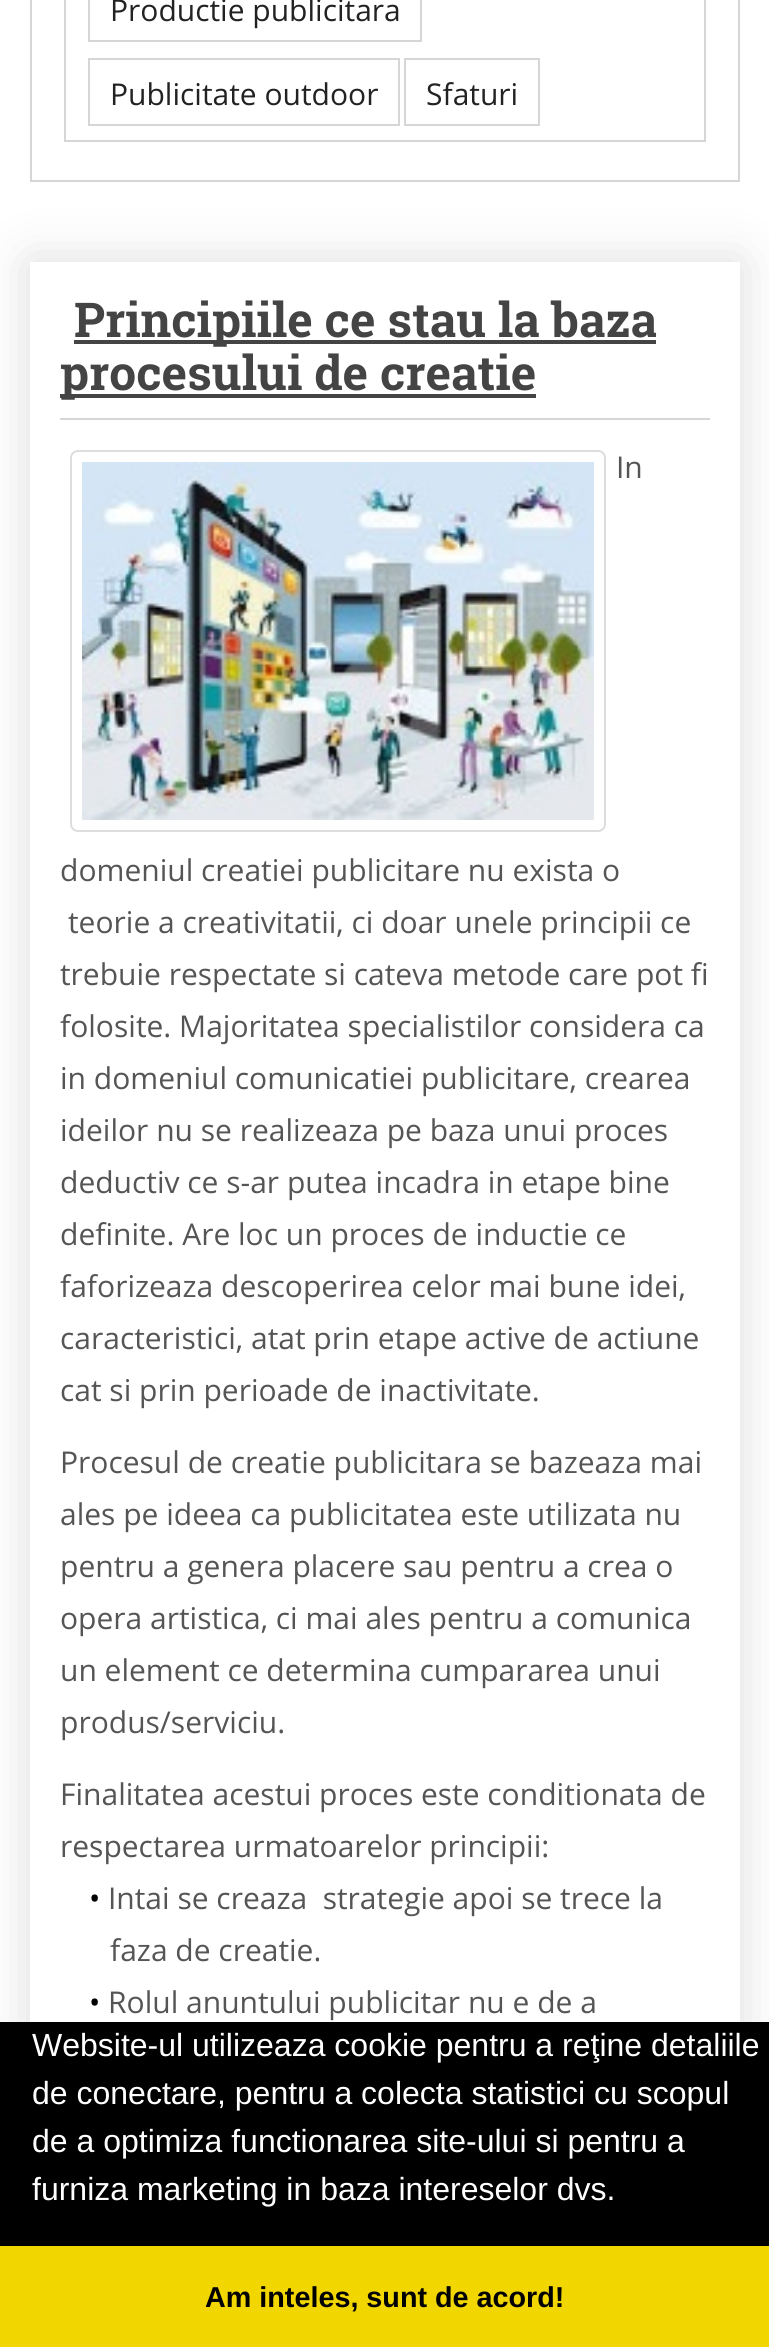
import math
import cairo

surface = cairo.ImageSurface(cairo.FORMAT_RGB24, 769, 2347)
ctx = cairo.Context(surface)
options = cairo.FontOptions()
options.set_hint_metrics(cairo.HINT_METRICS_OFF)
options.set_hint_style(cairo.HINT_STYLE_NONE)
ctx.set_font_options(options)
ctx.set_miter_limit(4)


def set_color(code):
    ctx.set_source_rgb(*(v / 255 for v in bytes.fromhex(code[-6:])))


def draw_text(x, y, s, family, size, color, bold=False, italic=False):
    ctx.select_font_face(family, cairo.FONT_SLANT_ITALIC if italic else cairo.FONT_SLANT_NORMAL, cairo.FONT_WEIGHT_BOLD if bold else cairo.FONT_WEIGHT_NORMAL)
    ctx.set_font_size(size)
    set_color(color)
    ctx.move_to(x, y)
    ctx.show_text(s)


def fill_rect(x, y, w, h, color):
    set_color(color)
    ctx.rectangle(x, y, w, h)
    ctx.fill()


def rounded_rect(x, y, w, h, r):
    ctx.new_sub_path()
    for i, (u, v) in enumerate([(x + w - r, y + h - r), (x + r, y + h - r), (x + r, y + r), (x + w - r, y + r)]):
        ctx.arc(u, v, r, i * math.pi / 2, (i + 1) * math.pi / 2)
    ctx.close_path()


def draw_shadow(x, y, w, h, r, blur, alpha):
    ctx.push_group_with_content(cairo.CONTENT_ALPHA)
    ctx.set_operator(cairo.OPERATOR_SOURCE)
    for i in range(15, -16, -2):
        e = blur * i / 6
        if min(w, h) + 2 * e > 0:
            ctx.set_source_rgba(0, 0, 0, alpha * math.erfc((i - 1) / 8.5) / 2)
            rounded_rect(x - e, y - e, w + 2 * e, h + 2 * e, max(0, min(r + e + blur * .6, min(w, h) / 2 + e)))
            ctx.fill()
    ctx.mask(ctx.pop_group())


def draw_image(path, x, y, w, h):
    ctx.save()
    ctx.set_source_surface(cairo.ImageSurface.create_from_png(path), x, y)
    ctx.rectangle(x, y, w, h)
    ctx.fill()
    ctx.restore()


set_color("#ffffff")
ctx.paint()
ctx.rectangle(31, -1, 708, 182)
set_color("#d6d6d6")
ctx.stroke()
ctx.rectangle(65, -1, 640, 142)
ctx.stroke()
ctx.rectangle(89, -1, 332, 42)
ctx.stroke()
draw_text(110, 21, "Productie publicitara", "Open Sans", 30, "#222222")
ctx.rectangle(89, 59, 310, 66)
set_color("#d6d6d6")
ctx.stroke()
draw_text(110, 105, "Publicitate outdoor", "Open Sans", 30, "#222222")
ctx.rectangle(405, 59, 134, 66)
set_color("#d6d6d6")
ctx.stroke()
draw_text(426, 105, "Sfaturi", "Open Sans", 30, "#222222")
ctx.save()
ctx.set_fill_rule(cairo.FILL_RULE_EVEN_ODD)
ctx.new_path()
ctx.move_to(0, 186)
ctx.line_to(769, 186)
ctx.line_to(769, 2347)
ctx.line_to(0, 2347)
ctx.close_path()
ctx.move_to(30, 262)
ctx.line_to(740, 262)
ctx.line_to(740, 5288)
ctx.line_to(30, 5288)
ctx.close_path()
ctx.clip()
set_color("#dddddd")
draw_shadow(30, 262, 710, 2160, 0, 25, 1)
ctx.restore()
fill_rect(60, 418, 650, 2, "#d6d6d6")
fill_rect(74, 340, 582, 4, "#444444")
draw_text(74, 337, "Principiile ce stau la baza", "Roboto Slab", 48, "#444444", bold=True)
fill_rect(60, 394, 476, 4, "#444444")
draw_text(60, 390, "procesului de creatie", "Roboto Slab", 48, "#444444", bold=True)
rounded_rect(71, 451, 534, 380, 7)
set_color("#dddddd")
ctx.stroke()
draw_image("assets/img1.png", 82, 462, 512, 358)
draw_text(616, 478, "In", "Open Sans", 30, "#555555")
draw_text(60, 881, "domeniul creatiei publicitare nu exista o", "Open Sans", 30, "#555555")
draw_text(68, 933, "teorie a creativitatii, ci doar unele principii ce", "Open Sans", 30, "#555555")
draw_text(60, 985, "trebuie respectate si cateva metode care pot fi", "Open Sans", 30, "#555555")
draw_text(60, 1037, "folosite. Majoritatea specialistilor considera ca", "Open Sans", 30, "#555555")
draw_text(60, 1089, "in domeniul comunicatiei publicitare, crearea", "Open Sans", 30, "#555555")
draw_text(60, 1141, "ideilor nu se realizeaza pe baza unui proces", "Open Sans", 30, "#555555")
draw_text(60, 1193, "deductiv ce s-ar putea incadra in etape bine", "Open Sans", 30, "#555555")
draw_text(60, 1245, "definite. Are loc un proces de inductie ce", "Open Sans", 30, "#555555")
draw_text(60, 1297, "faforizeaza descoperirea celor mai bune idei,", "Open Sans", 30, "#555555")
draw_text(60, 1349, "caracteristici, atat prin etape active de actiune", "Open Sans", 30, "#555555")
draw_text(60, 1401, "cat si prin perioade de inactivitate.", "Open Sans", 30, "#555555")
draw_text(60, 1473, "Procesul de creatie publicitara se bazeaza mai", "Open Sans", 30, "#555555")
draw_text(60, 1525, "ales pe ideea ca publicitatea este utilizata nu", "Open Sans", 30, "#555555")
draw_text(60, 1577, "pentru a genera placere sau pentru a crea o", "Open Sans", 30, "#555555")
draw_text(60, 1629, "opera artistica, ci mai ales pentru a comunica", "Open Sans", 30, "#555555")
draw_text(60, 1681, "un element ce determina cumpararea unui", "Open Sans", 30, "#555555")
draw_text(60, 1733, "produs/serviciu.", "Open Sans", 30, "#555555")
draw_text(60, 1805, "Finalitatea acestui proces este conditionata de", "Open Sans", 30, "#555555")
draw_text(60, 1857, "respectarea urmatoarelor principii:", "Open Sans", 30, "#555555")
draw_text(89, 1909, "•", "Open Sans", 30, "#000000")
draw_text(108, 1909, "Intai se creaza  strategie apoi se trece la", "Open Sans", 30, "#555555")
draw_text(110, 1961, "faza de creatie.", "Open Sans", 30, "#555555")
draw_text(89, 2013, "•", "Open Sans", 30, "#000000")
draw_text(108, 2013, "Rolul anuntului publicitar nu e de a", "Open Sans", 30, "#555555")
fill_rect(0, 2022, 769, 224, "#000000")
draw_text(32, 2056, "Website-ul utilizeaza cookie pentru a reţine detaliile", "Liberation Sans", 32, "#ffffff")
draw_text(32, 2104, "de conectare, pentru a colecta statistici cu scopul", "Liberation Sans", 32, "#ffffff")
draw_text(32, 2152, "de a optimiza functionarea site-ului si pentru a", "Liberation Sans", 32, "#ffffff")
draw_text(32, 2200, "furniza marketing in baza intereselor dvs.", "Liberation Sans", 32, "#ffffff")
fill_rect(0, 2246, 769, 101, "#f1d600")
draw_text(205, 2307, "Am inteles, sunt de acord!", "Liberation Sans", 28.75, "#000000", bold=True)
surface.write_to_png("output.png")
